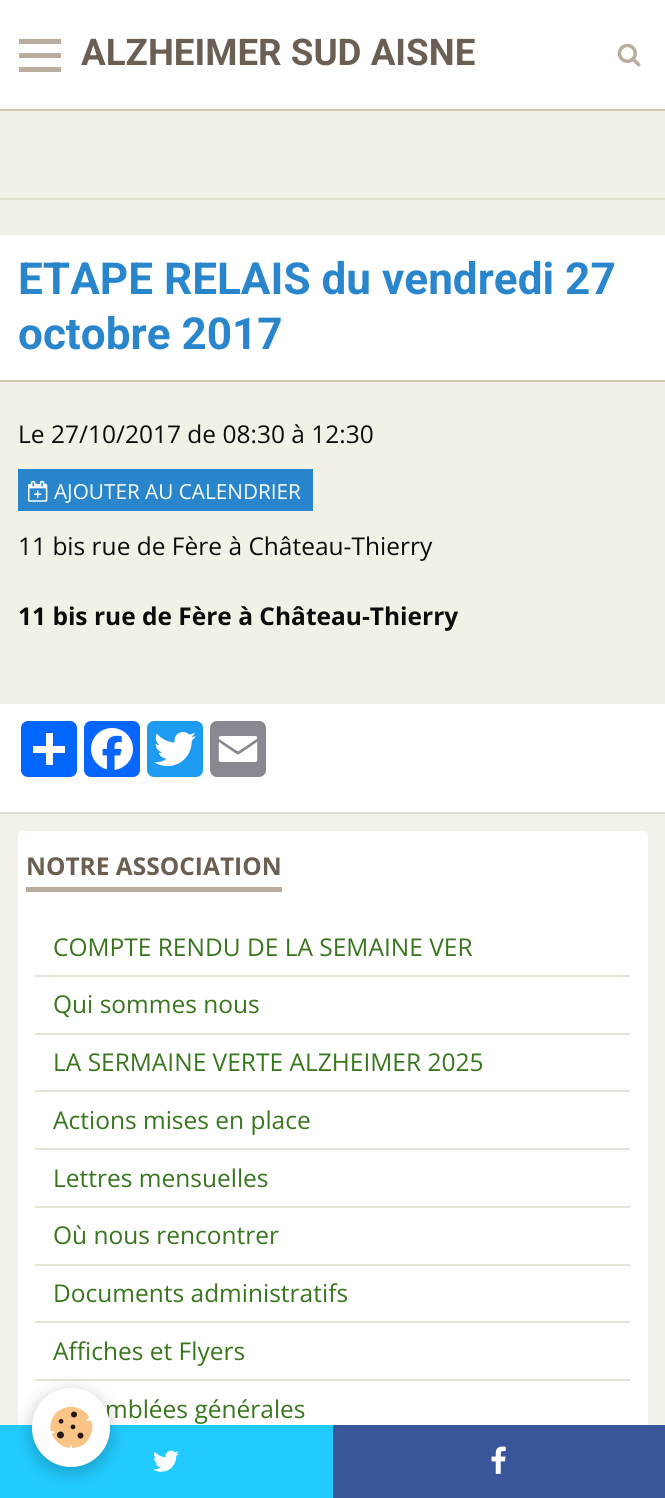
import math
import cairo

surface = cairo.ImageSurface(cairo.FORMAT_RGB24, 665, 1498)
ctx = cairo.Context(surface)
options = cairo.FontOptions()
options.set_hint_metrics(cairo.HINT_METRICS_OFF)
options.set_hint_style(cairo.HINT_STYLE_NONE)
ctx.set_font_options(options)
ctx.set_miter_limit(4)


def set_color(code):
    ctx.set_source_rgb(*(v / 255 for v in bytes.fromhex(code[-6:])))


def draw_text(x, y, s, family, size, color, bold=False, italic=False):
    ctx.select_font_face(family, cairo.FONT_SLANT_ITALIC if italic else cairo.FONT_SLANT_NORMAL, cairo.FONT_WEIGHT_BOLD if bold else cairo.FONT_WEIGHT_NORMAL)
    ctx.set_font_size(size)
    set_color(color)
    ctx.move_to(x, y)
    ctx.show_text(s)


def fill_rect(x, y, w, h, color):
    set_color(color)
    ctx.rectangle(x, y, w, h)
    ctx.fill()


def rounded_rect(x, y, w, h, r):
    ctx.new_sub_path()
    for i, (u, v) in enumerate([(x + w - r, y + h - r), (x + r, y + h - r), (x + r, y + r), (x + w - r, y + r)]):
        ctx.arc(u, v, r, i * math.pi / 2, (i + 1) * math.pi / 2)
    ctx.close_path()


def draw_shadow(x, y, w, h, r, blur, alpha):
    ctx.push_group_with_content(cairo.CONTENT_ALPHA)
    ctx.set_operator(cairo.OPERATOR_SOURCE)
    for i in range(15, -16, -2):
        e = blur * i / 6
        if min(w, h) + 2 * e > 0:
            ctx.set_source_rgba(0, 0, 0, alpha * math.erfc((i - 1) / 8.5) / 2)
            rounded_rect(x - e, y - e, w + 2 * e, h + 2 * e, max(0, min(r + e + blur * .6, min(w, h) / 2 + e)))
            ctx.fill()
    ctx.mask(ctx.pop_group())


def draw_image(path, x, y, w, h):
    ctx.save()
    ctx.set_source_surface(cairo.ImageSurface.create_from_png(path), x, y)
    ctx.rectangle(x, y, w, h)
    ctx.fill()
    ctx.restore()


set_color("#f1f1e6")
ctx.paint()
fill_rect(0, 0, 665, 109, "#ffffff")
fill_rect(0, 109, 665, 2, "#cdc8b1")
fill_rect(19, 53, 42, 5, "#baada0")
fill_rect(19, 39, 42, 5, "#baada0")
fill_rect(19, 67, 42, 5, "#baada0")
draw_text(81, 65, "ALZHEIMER SUD AISNE", "Roboto", 36.75, "#6b5f53", bold=True)
draw_image("assets/img1.png", 617, 43, 24, 24)
fill_rect(0, 198, 665, 2, "#dfddcc")
fill_rect(0, 235, 665, 145, "#ffffff")
fill_rect(0, 380, 665, 2, "#cdc8b1")
draw_text(18, 294, "ETAPE RELAIS du vendredi 27", "Roboto", 44.1, "#2986cc", bold=True)
draw_text(18, 349, "octobre 2017", "Roboto", 44.1, "#2986cc", bold=True)
draw_text(18, 443, "Le 27/10/2017 de 08:30 à 12:30", "Open Sans", 24.5, "#0c0c0c")
fill_rect(18, 469, 295, 42, "#2986cc")
draw_image("assets/img2.png", 28, 480, 20, 22)
draw_text(54, 499, "AJOUTER AU CALENDRIER", "Open Sans", 20.75, "#ffffff")
draw_text(18, 555, "11 bis rue de Fère à Château-Thierry", "Open Sans", 24.5, "#0c0c0c")
draw_text(18, 625, "11 bis rue de Fère à Château-Thierry", "Open Sans", 24.5, "#0c0c0c", bold=True)
fill_rect(0, 704, 665, 108, "#ffffff")
set_color("#0166ff")
rounded_rect(21, 721, 56, 56, 7)
ctx.fill()
fill_rect(46, 733, 7, 32, "#ffffff")
fill_rect(33, 746, 32, 7, "#ffffff")
set_color("#0866ff")
rounded_rect(84, 721, 56, 56, 7)
ctx.fill()
draw_image("assets/img3.png", 91, 728, 42, 42)
set_color("#1d9bf0")
rounded_rect(147, 721, 56, 56, 7)
ctx.fill()
draw_image("assets/img4.png", 154, 731, 42, 36)
set_color("#888990")
rounded_rect(210, 721, 56, 56, 7)
ctx.fill()
draw_image("assets/img5.png", 218, 736, 40, 26)
fill_rect(0, 814, 665, 611, "#f2f2ea")
fill_rect(0, 812, 665, 2, "#e0ddce")
set_color("#ffffff")
rounded_rect(18, 831, 630, 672, 5)
ctx.fill()
draw_text(26, 875, "NOTRE ASSOCIATION", "Open Sans", 24.5, "#6b5f53", bold=True)
fill_rect(26, 887, 256, 5, "#baada0")
fill_rect(35, 975, 595, 2, "#e6e4d8")
draw_text(53, 956, "COMPTE RENDU DE LA SEMAINE VER", "Open Sans", 24.5, "#38761d")
fill_rect(35, 1033, 595, 2, "#e6e4d8")
draw_text(53, 1013, "Qui sommes nous", "Open Sans", 24.5, "#38761d")
fill_rect(35, 1090, 595, 2, "#e6e4d8")
draw_text(53, 1071, "LA SERMAINE VERTE ALZHEIMER 2025", "Open Sans", 24.5, "#38761d")
fill_rect(35, 1148, 595, 2, "#e6e4d8")
draw_text(53, 1129, "Actions mises en place", "Open Sans", 24.5, "#38761d")
fill_rect(35, 1206, 595, 2, "#e6e4d8")
draw_text(53, 1187, "Lettres mensuelles", "Open Sans", 24.5, "#38761d")
fill_rect(35, 1264, 595, 2, "#e6e4d8")
draw_text(53, 1244, "Où nous rencontrer", "Open Sans", 24.5, "#38761d")
fill_rect(35, 1321, 595, 2, "#e6e4d8")
draw_text(53, 1302, "Documents administratifs", "Open Sans", 24.5, "#38761d")
fill_rect(35, 1379, 595, 2, "#e6e4d8")
draw_text(53, 1360, "Affiches et Flyers", "Open Sans", 24.5, "#38761d")
draw_text(105, 1418, "mblées générales", "Open Sans", 24.5, "#38761d")
fill_rect(0, 1425, 333, 73, "#22cbff")
set_color("#000000")
draw_shadow(32, 1393, 78, 79, 39, 9, 0.24)
set_color("#ffffff")
rounded_rect(32, 1388, 78, 79, 39)
ctx.fill()
draw_image("assets/img6.png", 50, 1406, 43, 42)
draw_image("assets/img7.png", 153, 1450, 26, 22)
fill_rect(333, 1425, 332, 73, "#385699")
draw_image("assets/img8.png", 491, 1446, 15, 28)
surface.write_to_png("output.png")
